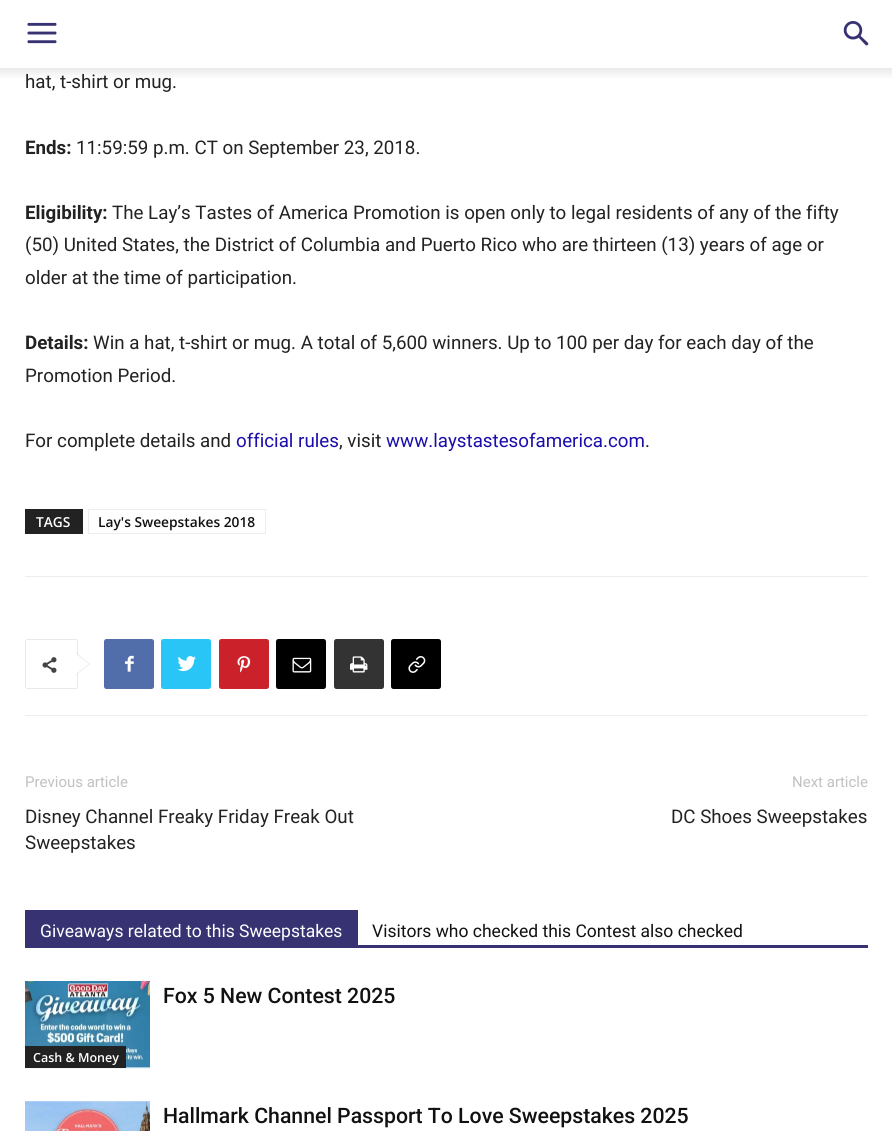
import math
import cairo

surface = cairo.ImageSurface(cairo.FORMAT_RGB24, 892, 1131)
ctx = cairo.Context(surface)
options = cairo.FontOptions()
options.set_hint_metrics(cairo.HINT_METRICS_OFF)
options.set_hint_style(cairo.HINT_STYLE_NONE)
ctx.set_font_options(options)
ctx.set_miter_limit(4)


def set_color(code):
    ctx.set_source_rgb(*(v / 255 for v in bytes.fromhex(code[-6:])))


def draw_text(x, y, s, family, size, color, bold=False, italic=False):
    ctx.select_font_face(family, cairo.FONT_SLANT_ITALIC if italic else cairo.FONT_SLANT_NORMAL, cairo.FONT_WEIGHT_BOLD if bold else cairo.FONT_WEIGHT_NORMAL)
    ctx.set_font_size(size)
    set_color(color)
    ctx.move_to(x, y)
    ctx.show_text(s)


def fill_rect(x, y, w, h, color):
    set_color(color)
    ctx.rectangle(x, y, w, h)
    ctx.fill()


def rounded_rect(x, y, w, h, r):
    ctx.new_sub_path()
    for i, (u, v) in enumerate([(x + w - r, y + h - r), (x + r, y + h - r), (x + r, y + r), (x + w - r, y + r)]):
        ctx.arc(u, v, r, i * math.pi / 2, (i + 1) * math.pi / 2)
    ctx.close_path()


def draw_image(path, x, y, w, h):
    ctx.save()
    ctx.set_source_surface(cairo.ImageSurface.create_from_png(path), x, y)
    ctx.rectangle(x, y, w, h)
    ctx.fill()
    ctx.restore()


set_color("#ffffff")
ctx.paint()
draw_image("assets/img1.png", 27, 22, 30, 22)
draw_image("assets/img2.png", 843, 21, 26, 25)
draw_text(25, 88, "hat, t-shirt or mug.", "Roboto", 18.75, "#222222")
draw_image("assets/img3.png", 0, 68, 892, 10)
draw_text(25, 154, "Ends:", "Roboto", 18.75, "#222222", bold=True)
draw_text(76, 154, "11:59:59 p.m. CT on September 23, 2018.", "Roboto", 18.75, "#222222")
draw_text(25, 219, "Eligibility:", "Roboto", 18.75, "#222222", bold=True)
draw_text(112, 219, "The Lay’s Tastes of America Promotion is open only to legal residents of any of the fifty", "Roboto", 18.75, "#222222")
draw_text(25, 251, "(50) United States, the District of Columbia and Puerto Rico who are thirteen (13) years of age or", "Roboto", 18.75, "#222222")
draw_text(25, 284, "older at the time of participation.", "Roboto", 18.75, "#222222")
draw_text(25, 349, "Details:", "Roboto", 18.75, "#222222", bold=True)
draw_text(93, 349, "Win a hat, t-shirt or mug. A total of 5,600 winners. Up to 100 per day for each day of the", "Roboto", 18.75, "#222222")
draw_text(25, 382, "Promotion Period.", "Roboto", 18.75, "#222222")
draw_text(25, 447, "For complete details and", "Roboto", 18.75, "#222222")
draw_text(236, 447, "official rules", "Roboto", 18.75, "#1a0dab")
draw_text(339, 447, ", visit", "Roboto", 18.75, "#222222")
draw_text(386, 447, "www.laystastesofamerica.com", "Roboto", 18.75, "#1a0dab")
draw_text(645, 447, ".", "Roboto", 18.75, "#222222")
fill_rect(25, 509, 58, 25, "#222222")
draw_text(36, 527, "TAGS", "Open Sans SemiBold", 13.75, "#ffffff")
ctx.rectangle(88.5, 509.5, 177, 24)
set_color("#ededed")
ctx.set_line_width(1)
ctx.stroke()
draw_text(98, 527, "Lay's Sweepstakes 2018", "Open Sans SemiBold", 13.75, "#111111")
fill_rect(25, 576, 843, 1, "#ededed")
fill_rect(25, 715, 843, 1, "#ededed")
rounded_rect(25.5, 639.5, 52, 49, 2)
set_color("#e9e9e9")
ctx.stroke()
ctx.new_path()
ctx.move_to(76, 675)
ctx.line_to(76, 652.5)
ctx.line_to(90, 664)
ctx.close_path()
ctx.fill()
draw_image("assets/img4.png", 42, 657, 15, 16)
set_color("#ffffff")
ctx.new_path()
ctx.move_to(76, 674)
ctx.line_to(76, 654)
ctx.line_to(89, 664)
ctx.close_path()
ctx.fill()
set_color("#516eab")
rounded_rect(104, 639, 50, 50, 2.5)
ctx.fill()
draw_image("assets/img5.png", 125, 655, 9, 17)
set_color("#29c5f6")
rounded_rect(161, 639, 50, 50, 2.5)
ctx.fill()
draw_image("assets/img6.png", 177, 656, 19, 16)
set_color("#ca212a")
rounded_rect(219, 639, 50, 50, 2.5)
ctx.fill()
draw_image("assets/img7.png", 237, 656, 14, 17)
set_color("#000000")
rounded_rect(276, 639, 50, 50, 2.5)
ctx.fill()
draw_image("assets/img8.png", 292, 657, 20, 16)
set_color("#333333")
rounded_rect(334, 639, 50, 50, 2.5)
ctx.fill()
draw_image("assets/img9.png", 350, 656, 18, 17)
set_color("#000000")
rounded_rect(391, 639, 50, 50, 2.5)
ctx.fill()
draw_image("assets/img10.png", 408, 656, 18, 17)
draw_text(25, 787, "Previous article", "Roboto", 15, "#c1c1c1")
draw_text(25, 823, "Disney Channel Freaky Friday Freak Out", "Roboto", 18.75, "#222222")
draw_text(25, 849, "Sweepstakes", "Roboto", 18.75, "#222222")
draw_text(792, 787, "Next article", "Roboto", 15, "#c1c1c1")
draw_text(671, 823, "DC Shoes Sweepstakes", "Roboto", 18.75, "#222222")
fill_rect(25, 945, 843, 3, "#373373")
fill_rect(25, 910, 333, 35, "#373373")
draw_text(40, 937, "Giveaways related to this Sweepstakes", "Roboto", 17.5, "#ffffff")
draw_text(372, 937, "Visitors who checked this Contest also checked", "Roboto", 17.5, "#111111")
draw_text(163, 1003, "Fox 5 New Contest 2025", "Roboto Medium", 21.25, "#111111")
draw_image("assets/img11.png", 25, 981, 125, 88)
fill_rect(25, 1046, 101, 22, "#222222")
draw_text(33, 1062, "Cash & Money", "Open Sans SemiBold", 12.5, "#ffffff")
draw_image("assets/img12.png", 25, 1101, 125, 30)
draw_text(163, 1123, "Hallmark Channel Passport To Love Sweepstakes 2025", "Roboto Medium", 21.25, "#111111")
surface.write_to_png("output.png")
